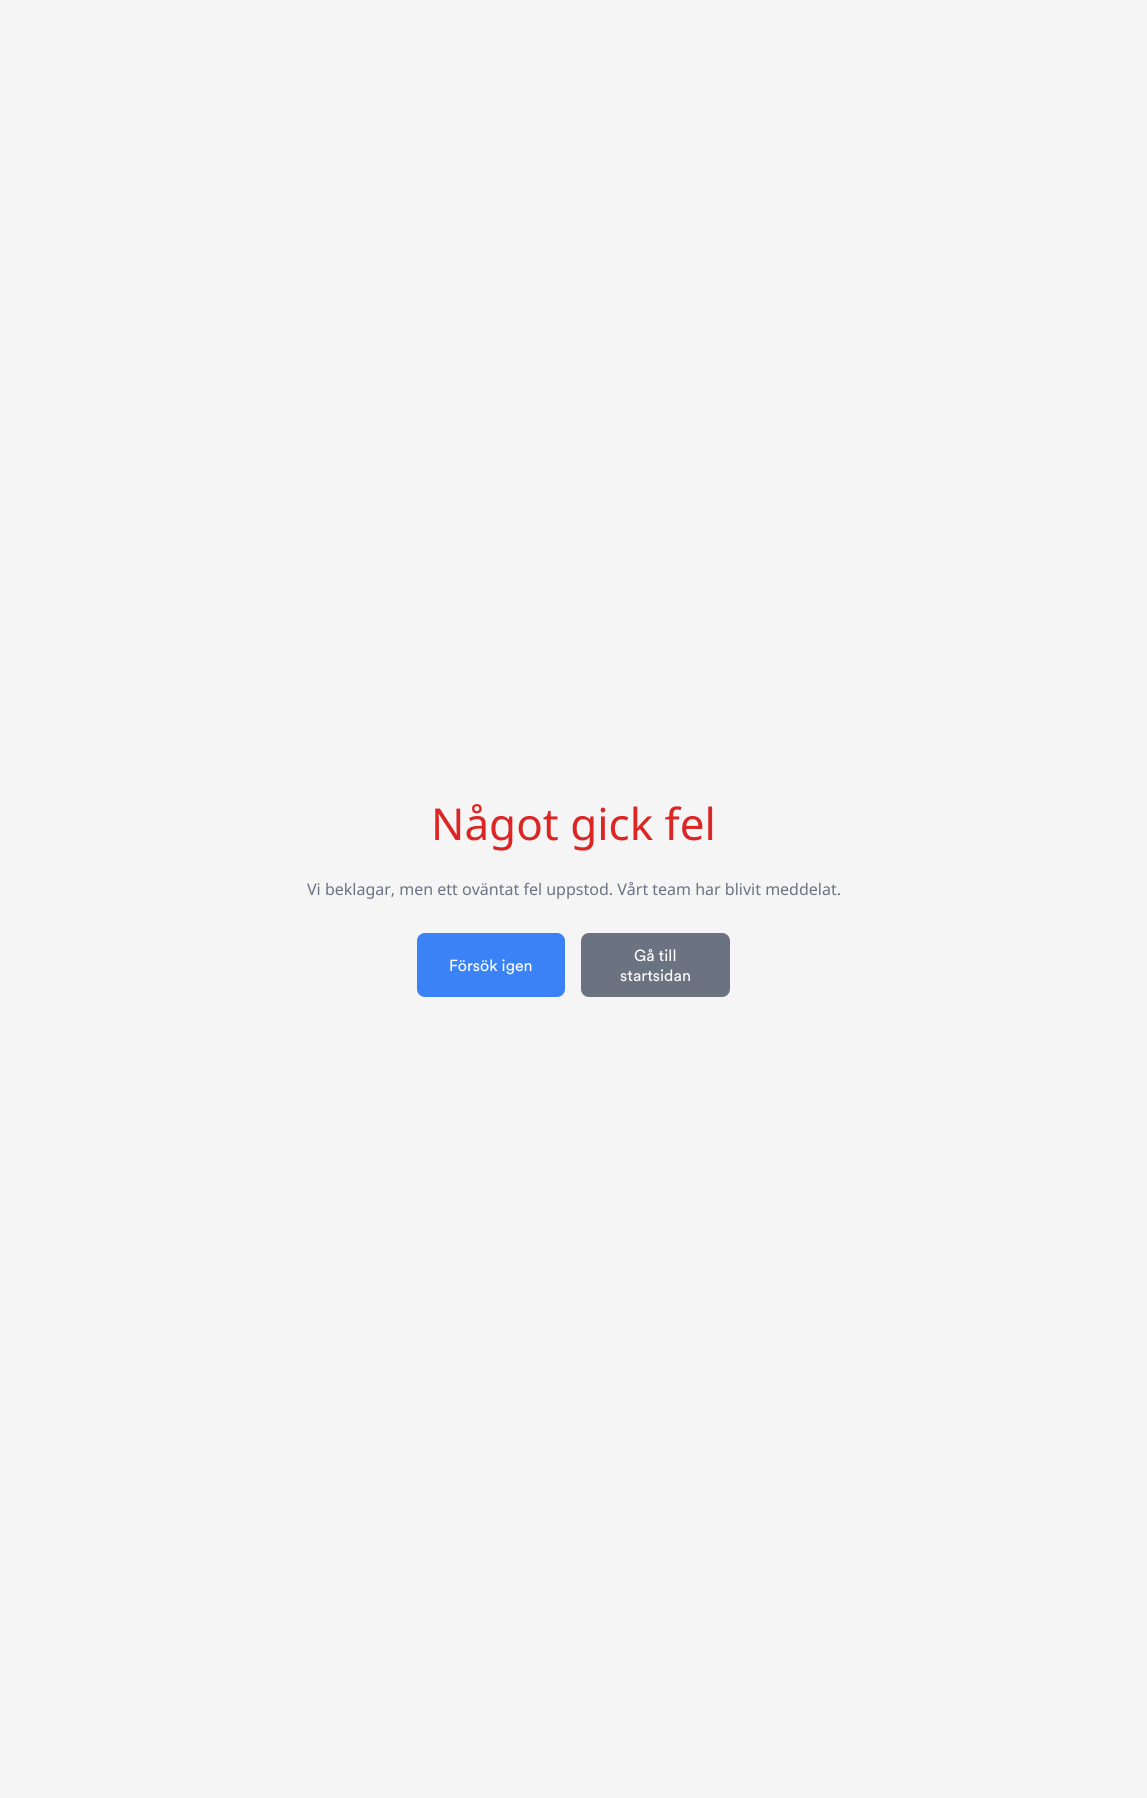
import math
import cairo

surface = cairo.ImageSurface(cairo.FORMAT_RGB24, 1147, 1798)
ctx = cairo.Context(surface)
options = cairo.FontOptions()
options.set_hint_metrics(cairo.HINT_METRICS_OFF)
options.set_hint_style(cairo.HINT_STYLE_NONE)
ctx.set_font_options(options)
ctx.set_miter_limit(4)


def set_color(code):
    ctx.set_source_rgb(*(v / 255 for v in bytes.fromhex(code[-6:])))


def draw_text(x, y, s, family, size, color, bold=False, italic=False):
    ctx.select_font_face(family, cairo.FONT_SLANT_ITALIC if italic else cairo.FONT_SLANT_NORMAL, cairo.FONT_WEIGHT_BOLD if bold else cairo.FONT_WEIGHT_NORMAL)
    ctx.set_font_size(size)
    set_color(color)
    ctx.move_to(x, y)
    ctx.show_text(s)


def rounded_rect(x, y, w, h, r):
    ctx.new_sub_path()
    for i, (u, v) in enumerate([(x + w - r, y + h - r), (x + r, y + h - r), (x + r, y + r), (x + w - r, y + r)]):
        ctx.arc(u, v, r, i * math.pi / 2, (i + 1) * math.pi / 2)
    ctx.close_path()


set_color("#f5f5f5")
ctx.paint()
draw_text(431, 840, "Något gick fel", "Noto Sans", 44, "#dc2626")
draw_text(307, 895, "Vi beklagar, men ett oväntat fel uppstod. Vårt team har blivit meddelat.", "Noto Sans", 16, "#6b7280")
set_color("#3b82f6")
rounded_rect(417, 933, 148, 64, 8)
ctx.fill()
draw_text(449, 971, "Försök igen", "Circular", 16, "#ffffff")
set_color("#6b7280")
rounded_rect(581, 933, 149, 64, 8)
ctx.fill()
draw_text(634, 961, "Gå till", "Circular", 16, "#ffffff")
draw_text(620, 981, "startsidan", "Circular", 16, "#ffffff")
surface.write_to_png("output.png")
